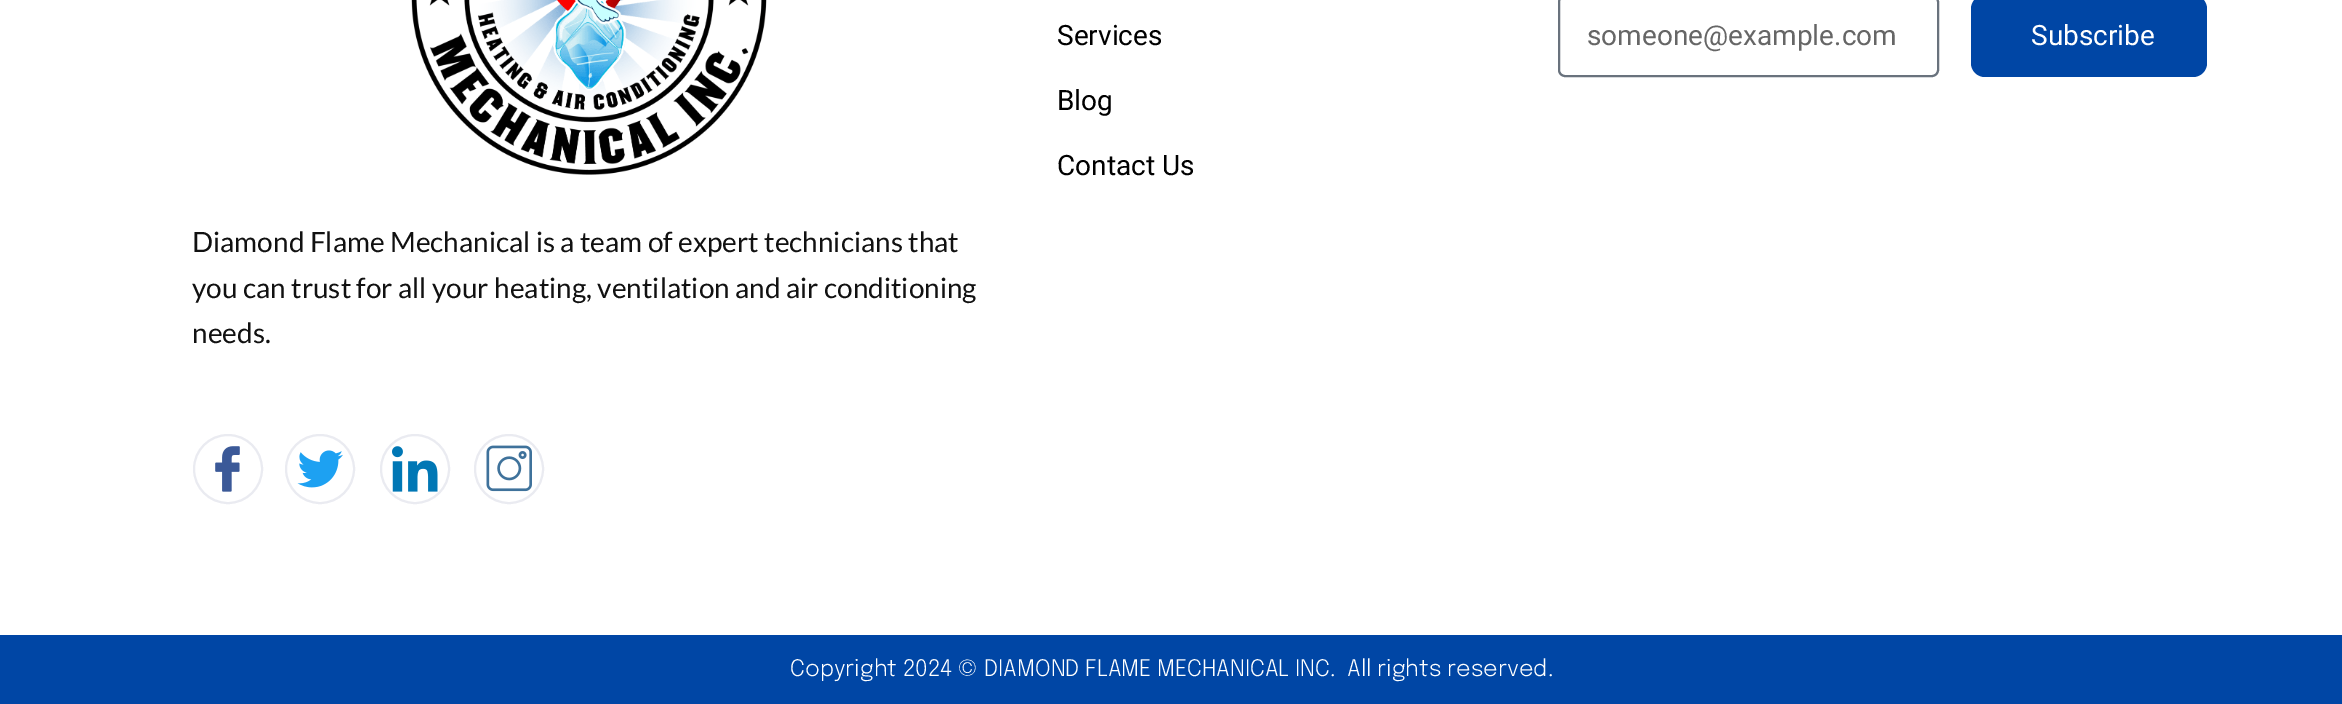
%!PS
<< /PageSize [2342 704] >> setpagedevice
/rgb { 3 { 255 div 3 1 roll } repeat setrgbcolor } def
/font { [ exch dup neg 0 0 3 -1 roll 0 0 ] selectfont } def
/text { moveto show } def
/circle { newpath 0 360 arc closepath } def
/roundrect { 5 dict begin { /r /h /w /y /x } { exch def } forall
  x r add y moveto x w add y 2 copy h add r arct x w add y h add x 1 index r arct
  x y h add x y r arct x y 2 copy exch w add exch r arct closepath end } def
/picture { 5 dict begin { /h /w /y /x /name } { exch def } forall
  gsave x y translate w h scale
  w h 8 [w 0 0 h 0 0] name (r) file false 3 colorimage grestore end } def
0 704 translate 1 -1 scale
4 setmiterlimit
255 255 255 rgb
0 0 2342 704 rectfill
105 114 125 rgb
2 setlinewidth
1559 -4 379 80 6 roundrect stroke
0 70 165 rgb
1971 -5 236 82 14 roundrect fill
(img_01.rgb) 411 0 356 175 picture
234 235 241 rgb
228 469 34 circle stroke
(img_02.rgb) 215 446 25 46 picture
320 469 34 circle stroke
(img_03.rgb) 297 450 46 38 picture
415 469 34 circle stroke
(img_04.rgb) 392 446 46 46 picture
509 469 34 circle stroke
(img_05.rgb) 486 445 46 47 picture
0 70 165 rgb
0 635 2342 69 rectfill
/Roboto-Regular 28 font
0 0 0 rgb
(Services) 1057 45 text
(Blog) 1057 110 text
(Contact Us) 1057 175 text
102 102 102 rgb
(someone@example.com) 1587 45 text
255 255 255 rgb
(Subscribe) 2031 45 text
/Lato-Regular 28 font
17 17 17 rgb
(Diamond Flame Mechanical is a team of expert technicians that) 192 252 text
(you can trust for all your heating, ventilation and air conditioning) 192 298 text
(needs.) 192 343 text
/Epilogue-Light 22.75 font
255 255 255 rgb
(Copyright 2024 © DIAMOND FLAME MECHANICAL INC.  All rights reserved.) 790 676 text
showpage
